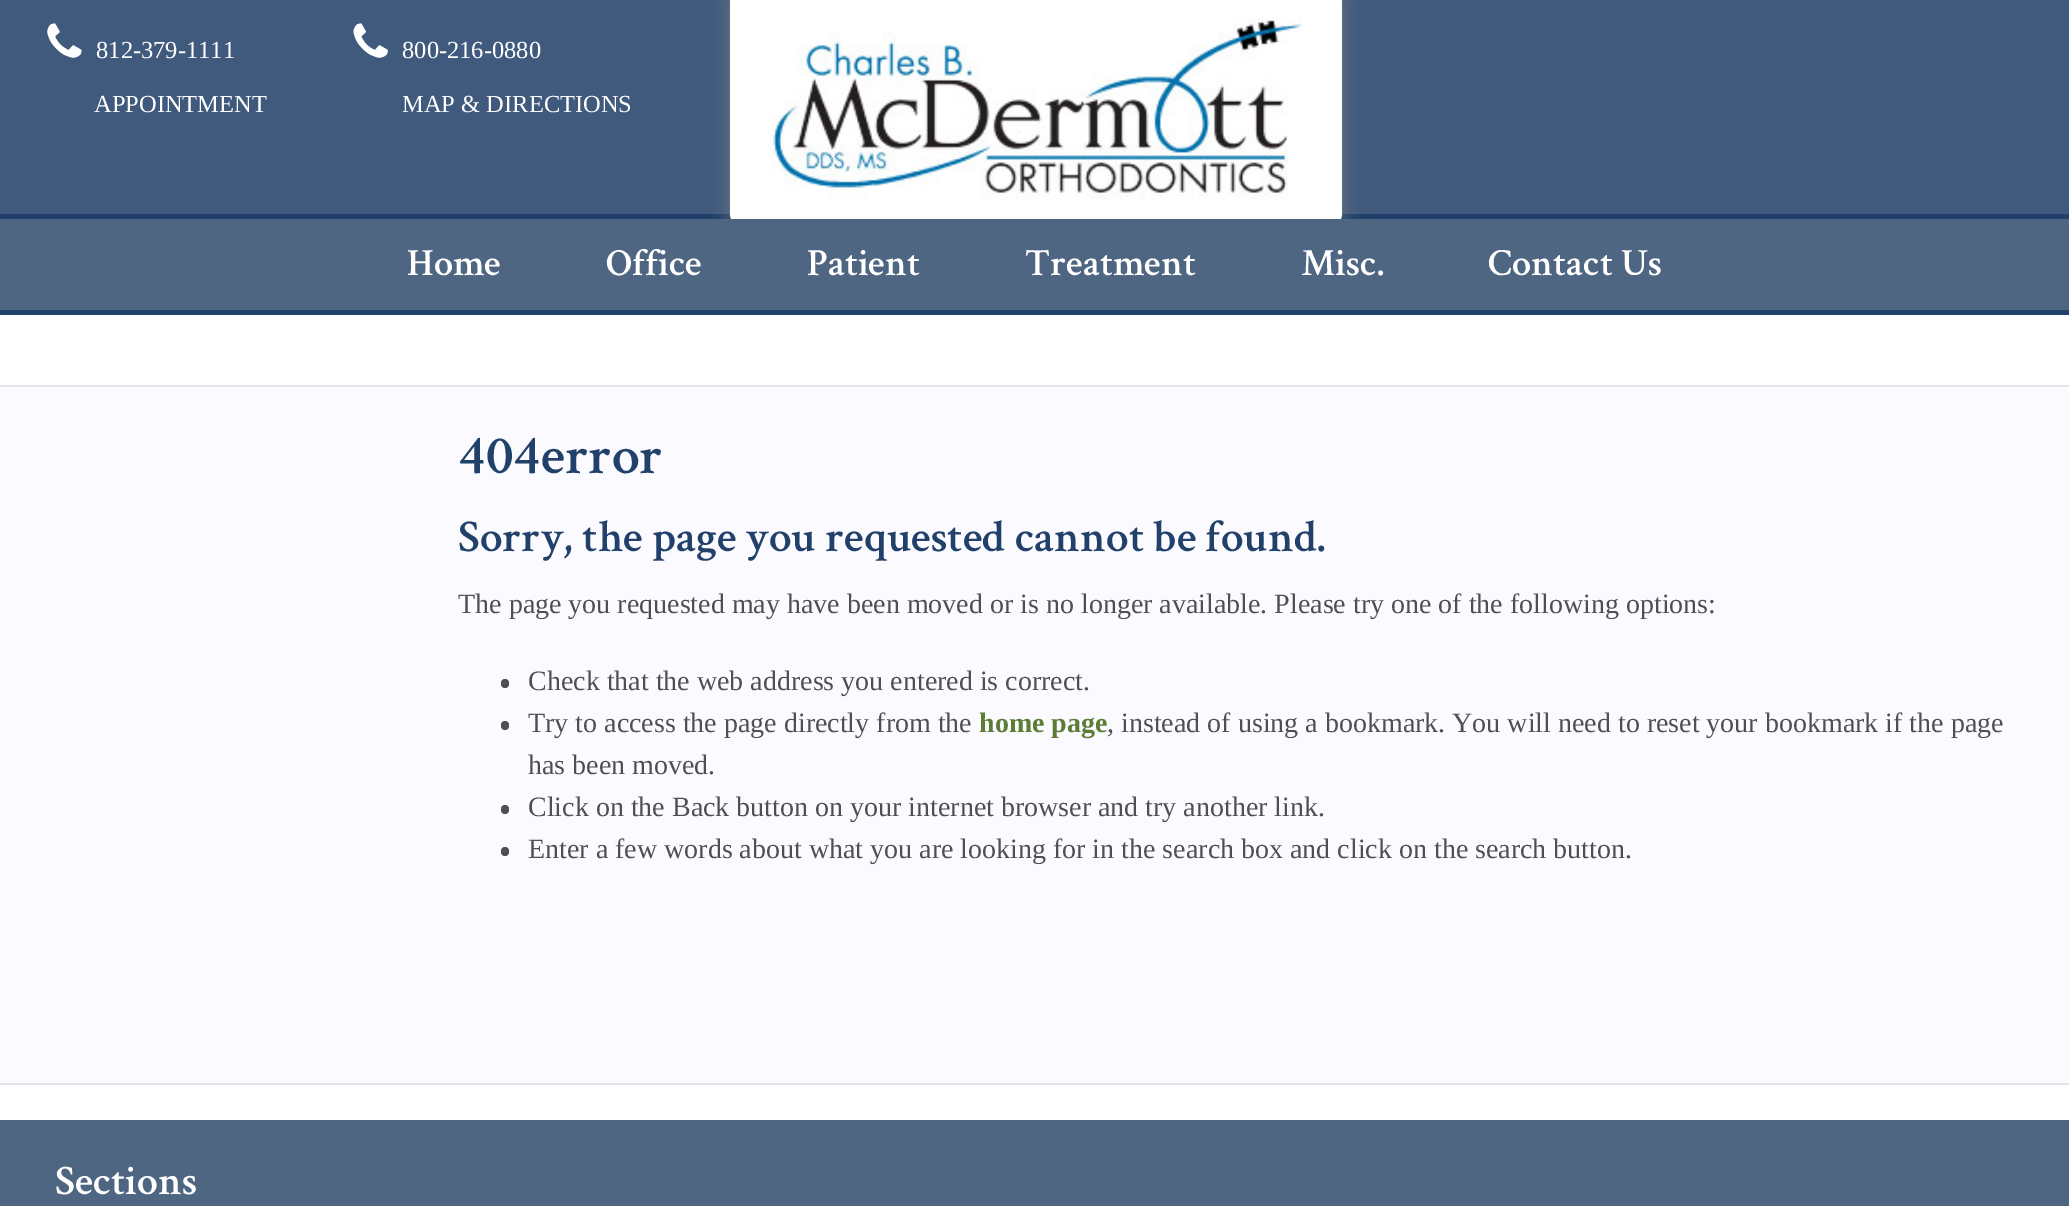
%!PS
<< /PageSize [2069 1206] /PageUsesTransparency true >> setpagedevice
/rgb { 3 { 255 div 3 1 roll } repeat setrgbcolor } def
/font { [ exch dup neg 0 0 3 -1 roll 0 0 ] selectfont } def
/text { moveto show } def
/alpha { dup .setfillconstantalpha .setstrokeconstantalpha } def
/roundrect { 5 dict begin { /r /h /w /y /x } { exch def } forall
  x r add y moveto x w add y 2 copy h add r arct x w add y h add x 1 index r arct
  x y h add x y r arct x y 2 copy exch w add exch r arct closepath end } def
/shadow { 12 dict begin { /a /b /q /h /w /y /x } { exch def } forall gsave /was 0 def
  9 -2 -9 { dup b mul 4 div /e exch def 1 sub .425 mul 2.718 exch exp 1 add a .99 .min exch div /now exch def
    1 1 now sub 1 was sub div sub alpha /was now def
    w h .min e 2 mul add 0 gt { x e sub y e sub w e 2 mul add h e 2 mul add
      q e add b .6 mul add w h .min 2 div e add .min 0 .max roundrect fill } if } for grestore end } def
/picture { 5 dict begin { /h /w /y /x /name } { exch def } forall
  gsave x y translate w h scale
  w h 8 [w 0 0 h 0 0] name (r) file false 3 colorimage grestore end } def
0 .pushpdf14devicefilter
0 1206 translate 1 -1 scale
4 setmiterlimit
255 255 255 rgb
0 0 2069 1206 rectfill
64 90 125 rgb
0 0 2069 214 rectfill
33 65 106 rgb
0 214 2069 5 rectfill
(img_01.rgb) 47 23 35 35 picture
(img_02.rgb) 353 23 35 35 picture
130 130 130 rgb
730 -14 612 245 18 9 0.75 shadow
255 255 255 rgb
730 -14 moveto 612 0 rlineto 0 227 rlineto 0 10 -8 18 -18 18 rcurveto -576 0 rlineto -10 0 -18 -8 -18 -18 rcurveto closepath fill
(img_03.rgb) 770 17 533 183 picture
79 102 131 rgb
0 219 2069 91 rectfill
33 65 106 rgb
0 310 2069 5 rectfill
251 250 255 rgb
0 387 2069 696 rectfill
226 228 232 rgb
0 385 2069 2 rectfill
0 1083 2069 2 rectfill
77 79 82 rgb
501 679 8 9 4 roundrect fill
501 721 8 9 4 roundrect fill
501 805 8 9 4 roundrect fill
501 847 8 9 4 roundrect fill
79 102 131 rgb
0 1120 2069 86 rectfill
/LiberationSerif-Regular 24.5 font
255 255 255 rgb
(812-379-1111) 96 58 text
(800-216-0880) 402 58 text
(APPOINTMENT) 94 112 text
(MAP & DIRECTIONS) 402 112 text
/CrimsonText-SemiBold 38.5 font
(Home) 407 275 text
(Office) 606 275 text
(Patient) 807 275 text
(Treatment) 1025 275 text
(Misc.) 1301 275 text
(Contact Us) 1488 275 text
/CrimsonText-SemiBold 56 font
33 65 106 rgb
(404error) 458 473 text
/CrimsonText-SemiBold 45.5 font
(Sorry, the page you requested cannot be found.) 458 551 text
/LiberationSerif-Regular 28 font
77 79 82 rgb
(The page you requested may have been moved or is no longer available. Please try one of the following options:) 458 613 text
(Check that the web address you entered is correct.) 528 690 text
(Try to access the page directly from the) 528 732 text
/LiberationSerif-Bold 28 font
92 125 54 rgb
(home page) 979 732 text
/LiberationSerif-Regular 28 font
77 79 82 rgb
(, instead of using a bookmark. You will need to reset your bookmark if the page) 1107 732 text
(has been moved.) 528 774 text
(Click on the Back button on your internet browser and try another link.) 528 816 text
(Enter a few words about what you are looking for in the search box and click on the search button.) 528 858 text
/CrimsonText-SemiBold 42 font
255 255 255 rgb
(Sections) 55 1194 text
.poppdf14devicefilter showpage
